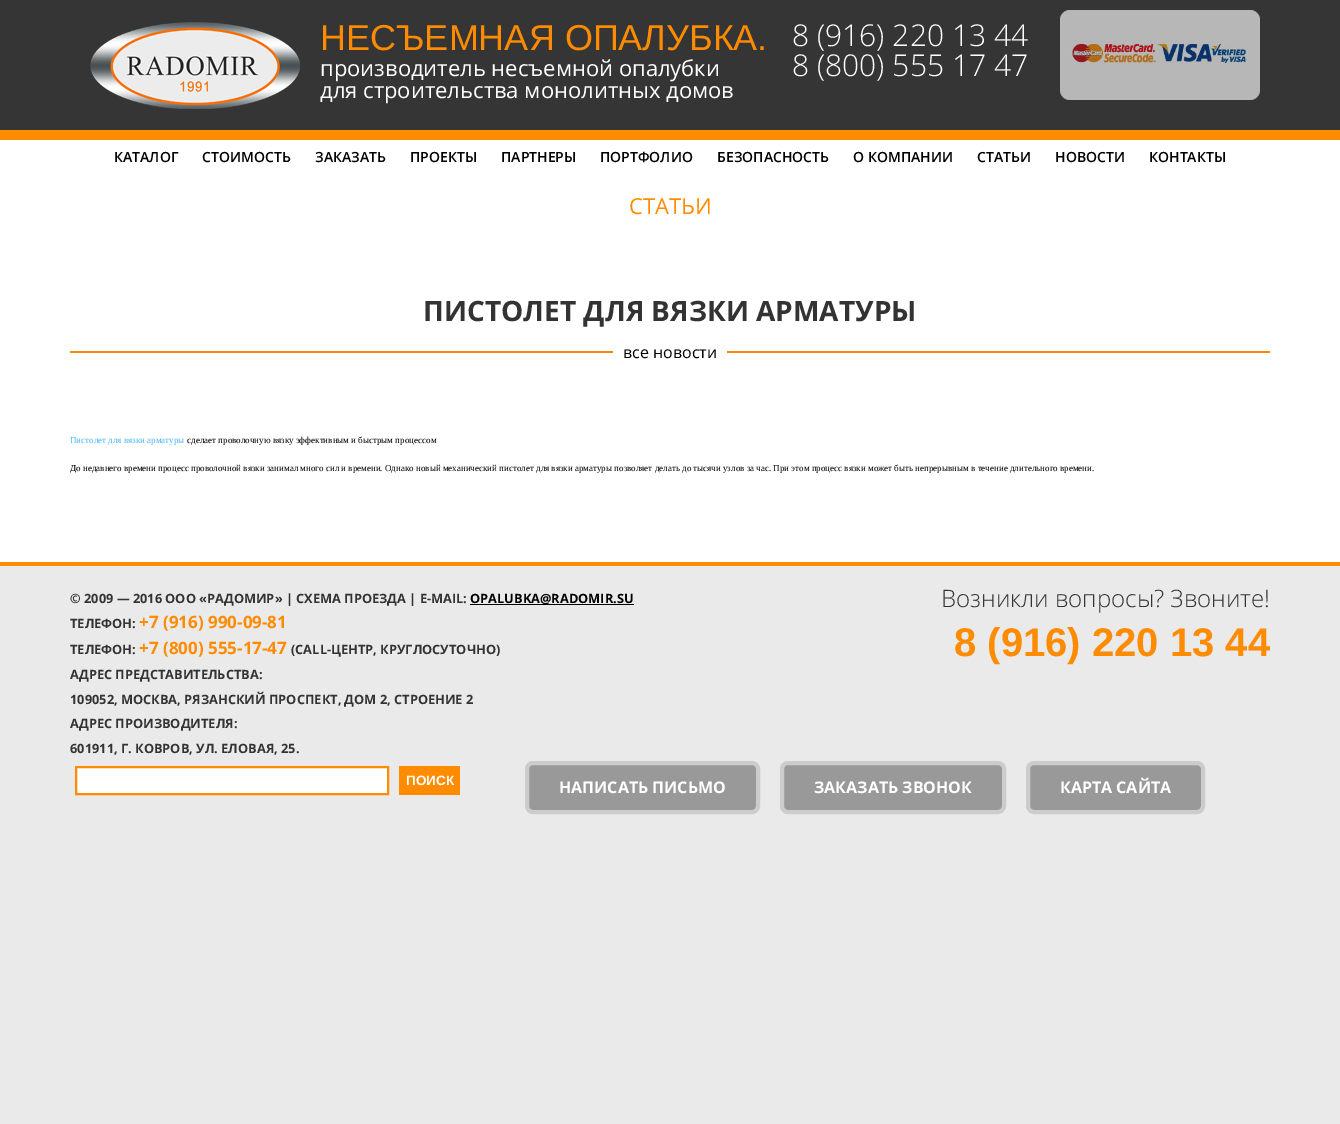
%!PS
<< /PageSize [1340 1124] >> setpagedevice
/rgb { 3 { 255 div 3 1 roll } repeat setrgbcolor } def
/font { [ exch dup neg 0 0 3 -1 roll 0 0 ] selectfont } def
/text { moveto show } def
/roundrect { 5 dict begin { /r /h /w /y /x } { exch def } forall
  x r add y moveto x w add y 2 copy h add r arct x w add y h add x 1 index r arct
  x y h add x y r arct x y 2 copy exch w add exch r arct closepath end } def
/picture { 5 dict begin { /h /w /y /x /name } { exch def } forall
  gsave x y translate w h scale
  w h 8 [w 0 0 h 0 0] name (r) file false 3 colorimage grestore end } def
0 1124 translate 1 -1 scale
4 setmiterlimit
234 234 234 rgb
0 0 1340 1124 rectfill
53 53 53 rgb
0 0 1340 130 rectfill
(img_01.rgb) 90 22 210 87 picture
183 183 183 rgb
1060 10 200 90 10 roundrect fill
(img_02.rgb) 1070 40 177 26 picture
255 255 255 rgb
0 140 1340 422 rectfill
255 139 0 rgb
0 130 1340 10 rectfill
248 135 1 rgb
70 351 1200 2 rectfill
255 255 255 rgb
613 351 114 2 rectfill
255 139 0 rgb
0 562 1340 4 rectfill
0 0 0 rgb
470 604 164 1 rectfill
255 255 255 rgb
76 767 moveto 312 0 rlineto 0 27 rlineto -312 0 rlineto closepath gsave fill grestore
255 139 0 rgb
2 setlinewidth
stroke
399 766 61 29 rectfill
153 153 153 rgb
527 763 231 49 6 roundrect gsave fill grestore
204 204 204 rgb
4 setlinewidth
stroke
153 153 153 rgb
782 763 222 49 6 roundrect gsave fill grestore
204 204 204 rgb
stroke
153 153 153 rgb
1028 763 175 49 6 roundrect gsave fill grestore
204 204 204 rgb
stroke
/LiberationSans-Regular 36 font
255 139 0 rgb
(НЕСЪЕМНАЯ ОПАЛУБКА.) 320 50 text
/OpenSans-Regular 22 font
255 255 255 rgb
(производитель несъемной опалубки) 320 76 text
(для строительства монолитных домов) 320 98 text
/OpenSans-Light 30 font
(8 \(916\) 220 13 44) 792 46 text
(8 \(800\) 555 17 47) 792 76 text
/OpenSans-SemiBold 14 font
0 0 0 rgb
(КАТАЛОГ) 114 162 text
(СТОИМОСТЬ) 202 162 text
(ЗАКАЗАТЬ) 315 162 text
(ПРОЕКТЫ) 410 162 text
(ПАРТНЕРЫ) 501 162 text
(ПОРТФОЛИО) 600 162 text
(БЕЗОПАСНОСТЬ) 717 162 text
(О КОМПАНИИ) 853 162 text
(СТАТЬИ) 977 162 text
(НОВОСТИ) 1055 162 text
(КОНТАКТЫ) 1149 162 text
/OpenSans-Regular 22 font
255 139 0 rgb
(СТАТЬИ) 629 214 text
/OpenSans-Bold 28 font
51 51 51 rgb
(ПИСТОЛЕТ ДЛЯ ВЯЗКИ АРМАТУРЫ) 423 321 text
/OpenSans-Regular 16 font
0 0 0 rgb
(все новости) 623 358 text
/LiberationSerif-Regular 9 font
75 182 245 rgb
(Пистолет для вязки арматуры) 70 443 text
0 0 0 rgb
(сделает проволочную вязку эффективным и быстрым процессом) 187 443 text
(До недавнего времени процесс проволочной вязки занимал много сил и времени. Однако новый механический пистолет для вязки арматуры позволяет делать до тысячи узлов за час. При этом процесс вязки может быть непрерывным в течение длительного времени.) 70 471 text
/OpenSans-Bold 12.8 font
51 51 51 rgb
(© 2009 — 2016 ООО «РАДОМИР» | СХЕМА ПРОЕЗДА | E-MAIL:) 70 603 text
0 0 0 rgb
(OPALUBKA@RADOMIR.SU) 470 603 text
51 51 51 rgb
(ТЕЛЕФОН:) 70 628 text
/OpenSans-Bold 17 font
255 139 0 rgb
(+7 \(916\) 990-09-81) 139 628 text
/OpenSans-Bold 12.8 font
51 51 51 rgb
(ТЕЛЕФОН:) 70 654 text
/OpenSans-Bold 17 font
255 139 0 rgb
(+7 \(800\) 555-17-47) 139 654 text
/OpenSans-Bold 12.8 font
51 51 51 rgb
(\(CALL-ЦЕНТР, КРУГЛОСУТОЧНО\)) 291 654 text
(АДРЕС ПРЕДСТАВИТЕЛЬСТВА:) 70 679 text
(109052, МОСКВА, РЯЗАНСКИЙ ПРОСПЕКТ, ДОМ 2, СТРОЕНИЕ 2) 70 704 text
(АДРЕС ПРОИЗВОДИТЕЛЯ:) 70 728 text
(601911, Г. КОВРОВ, УЛ. ЕЛОВАЯ, 25.) 70 753 text
/OpenSans-Light 24 font
(Возникли вопросы? Звоните!) 941 607 text
/LiberationSans-Bold 40 font
255 139 0 rgb
(8 \(916\) 220 13 44) 954 656 text
/LiberationSans-Bold 13.5 font
255 255 255 rgb
(ПОИСК) 406 785 text
/OpenSans-Bold 16 font
(НАПИСАТЬ ПИСЬМО) 559 793 text
(ЗАКАЗАТЬ ЗВОНОК) 814 793 text
(КАРТА САЙТА) 1060 793 text
showpage
